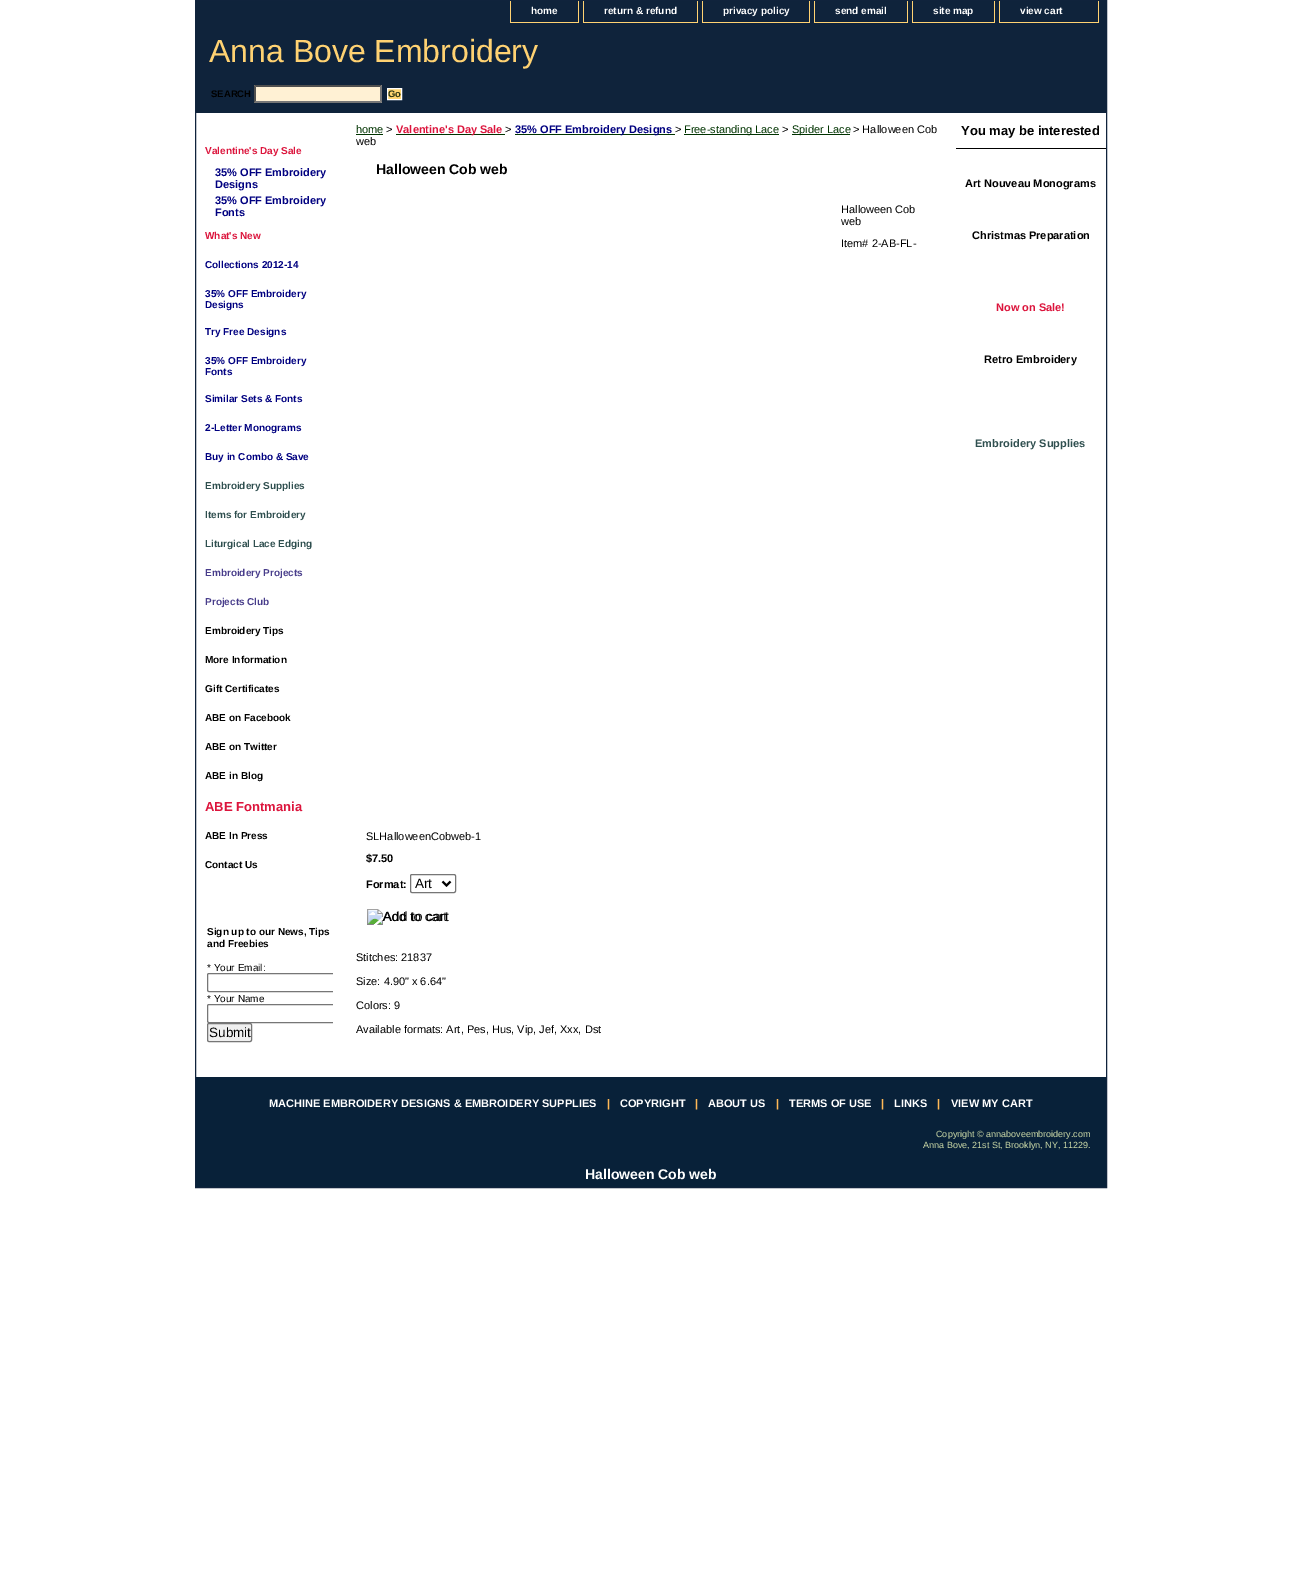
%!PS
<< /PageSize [1301 1579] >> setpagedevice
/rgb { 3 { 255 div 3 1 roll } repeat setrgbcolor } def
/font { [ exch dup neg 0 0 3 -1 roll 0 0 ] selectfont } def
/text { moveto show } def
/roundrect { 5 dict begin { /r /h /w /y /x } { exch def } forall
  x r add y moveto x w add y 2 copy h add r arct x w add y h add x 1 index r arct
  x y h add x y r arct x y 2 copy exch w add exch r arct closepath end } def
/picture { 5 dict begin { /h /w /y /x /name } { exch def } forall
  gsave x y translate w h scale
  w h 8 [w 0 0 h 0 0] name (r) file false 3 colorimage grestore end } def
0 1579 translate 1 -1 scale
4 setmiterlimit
255 255 255 rgb
0 0 1301 1579 rectfill
16 35 60 rgb
195.5 0.5 911 1187 rectstroke
15 35 59 rgb
196 1 910 112 rectfill
255 210 114 rgb
578 1 1 22 rectfill
510 22 69 1 rectfill
510 1 1 22 rectfill
697 1 1 22 rectfill
583 22 115 1 rectfill
583 1 1 22 rectfill
809 1 1 22 rectfill
702 22 108 1 rectfill
702 1 1 22 rectfill
907 1 1 22 rectfill
814 22 94 1 rectfill
814 1 1 22 rectfill
994 1 1 22 rectfill
912 22 83 1 rectfill
912 1 1 22 rectfill
1098 1 1 22 rectfill
999 22 100 1 rectfill
999 1 1 22 rectfill
255 241 212 rgb
254 85 128 18 rectfill
79 79 79 rgb
254 85 moveto 128 0 rlineto -2 2 rlineto -124 0 rlineto closepath fill
118 118 118 rgb
382 85 moveto 0 18 rlineto -2 -2 rlineto 0 -14 rlineto closepath fill
382 103 moveto -128 0 rlineto 2 -2 rlineto 124 0 rlineto closepath fill
79 79 79 rgb
254 103 moveto 0 -18 rlineto 2 2 rlineto 0 14 rlineto closepath fill
254 213 112 rgb
387.5 88.5 moveto 14 0 rlineto 0 11 rlineto -14 0 rlineto closepath gsave fill grestore
255 255 255 rgb
stroke
gsave
196 113 137 964 rectclip
118 118 118 rgb
207.5 973.5 132 18 1.5 roundrect stroke
207.5 1004.5 132 18 1.5 roundrect stroke
grestore
239 239 239 rgb
207.5 1023.5 44 18 1.5 roundrect gsave fill grestore
118 118 118 rgb
stroke
0 51 0 rgb
356 134 27 1 rectfill
396 134 109 1 rectfill
515 134 160 1 rectfill
684 134 95 1 rectfill
792 134 58 1 rectfill
118 118 118 rgb
410.5 874.5 45 18 1.5 roundrect stroke
0 0 0 rgb
2 setlinewidth
442.5 881.5 moveto 4 4 rlineto 4 -4 rlineto stroke
(img_01.rgb) 367 909 80 16 picture
956 148 150 1 rectfill
8 33 57 rgb
196 1077 910 110 rectfill
/LiberationSans-Bold 10 font
255 255 255 rgb
(home) 531 14 text
(return & refund) 604 14 text
(privacy policy) 723 14 text
(send email) 835 14 text
(site map) 933 14 text
(view cart) 1020 14 text
/LiberationSans-Regular 32 font
255 210 114 rgb
(Anna Bove Embroidery) 209 62 text
/LiberationSans-Bold 9.5 font
0 0 0 rgb
(SEARCH) 211 97 text
41 52 19 rgb
(Go) 388 97 text
/LiberationSans-Bold 10 font
220 20 60 rgb
(Valentine's Day Sale) 205 154 text
/LiberationSans-Bold 11 font
0 0 128 rgb
(35% OFF Embroidery) 215 176 text
(Designs) 215 188 text
(35% OFF Embroidery) 215 204 text
(Fonts) 215 216 text
/LiberationSans-Bold 10 font
220 20 60 rgb
(What's New) 205 239 text
0 0 128 rgb
(Collections 2012-14) 205 268 text
(35% OFF Embroidery) 205 297 text
(Designs) 205 308 text
(Try Free Designs) 205 335 text
(35% OFF Embroidery) 205 364 text
(Fonts) 205 375 text
(Similar Sets & Fonts) 205 402 text
(2-Letter Monograms) 205 431 text
(Buy in Combo & Save) 205 460 text
47 79 79 rgb
(Embroidery Supplies) 205 489 text
(Items for Embroidery) 205 518 text
(Liturgical Lace Edging) 205 547 text
72 61 139 rgb
(Embroidery Projects) 205 576 text
(Projects Club) 205 605 text
0 0 0 rgb
(Embroidery Tips) 205 634 text
(More Information) 205 663 text
(Gift Certificates) 205 692 text
(ABE on Facebook) 205 721 text
(ABE on Twitter) 205 750 text
(ABE in Blog) 205 779 text
/LiberationSans-Bold 13 font
220 20 60 rgb
(ABE Fontmania) 205 811 text
/LiberationSans-Bold 10 font
0 0 0 rgb
(ABE In Press) 205 839 text
(Contact Us) 205 868 text
(Sign up to our News, Tips) 207 935 text
(and Freebies) 207 947 text
/LiberationSans-Regular 10 font
(* Your Email:) 207 971 text
(* Your Name) 207 1002 text
/LiberationSans-Regular 13.5 font
(Submit) 209 1037 text
/LiberationSans-Regular 11 font
0 51 0 rgb
(home) 356 133 text
0 0 0 rgb
(>) 386 133 text
/LiberationSans-Bold 11 font
220 20 60 rgb
(Valentine's Day Sale) 396 133 text
/LiberationSans-Regular 11 font
0 0 0 rgb
(>) 505 133 text
/LiberationSans-Bold 11 font
0 0 128 rgb
(35% OFF Embroidery Designs) 515 133 text
/LiberationSans-Regular 11 font
0 0 0 rgb
(>) 675 133 text
0 51 0 rgb
(Free-standing Lace) 684 133 text
0 0 0 rgb
(>) 782 133 text
0 51 0 rgb
(Spider Lace) 792 133 text
0 0 0 rgb
(> Halloween Cob) 853 133 text
(web) 356 145 text
/LiberationSans-Bold 14 font
(Halloween Cob web) 376 174 text
/LiberationSans-Regular 11 font
(Halloween Cob) 841 213 text
(web) 841 225 text
(Item# 2-AB-FL-) 841 247 text
(SLHalloweenCobweb-1) 366 840 text
/LiberationSans-Bold 11 font
($7.50) 366 862 text
(Format:) 366 888 text
/LiberationSans-Regular 13.5 font
(Art) 415 888 text
(Add to cart) 383 921 text
/LiberationSans-Regular 11 font
(Stitches: 21837) 356 961 text
(Size: 4.90" x 6.64") 356 985 text
(Colors: 9) 356 1009 text
(Available formats: Art, Pes, Hus, Vip, Jef, Xxx, Dst) 356 1033 text
/LiberationSans-Bold 13 font
(You may be interested) 961 135 text
/LiberationSans-Bold 11 font
(Art Nouveau Monograms) 965 187 text
(Christmas Preparation) 972 239 text
220 20 60 rgb
(Now on Sale!) 996 311 text
0 0 0 rgb
(Retro Embroidery) 984 363 text
47 79 79 rgb
(Embroidery Supplies) 975 447 text
255 255 255 rgb
(MACHINE EMBROIDERY DESIGNS & EMBROIDERY SUPPLIES) 269 1107 text
255 184 87 rgb
(|) 607 1107 text
255 255 255 rgb
(COPYRIGHT) 620 1107 text
255 184 87 rgb
(|) 695 1107 text
255 255 255 rgb
(ABOUT US) 708 1107 text
255 184 87 rgb
(|) 776 1107 text
255 255 255 rgb
(TERMS OF USE) 789 1107 text
255 184 87 rgb
(|) 881 1107 text
255 255 255 rgb
(LINKS) 894 1107 text
255 184 87 rgb
(|) 937 1107 text
255 255 255 rgb
(VIEW MY CART) 951 1107 text
/LiberationSans-Regular 9 font
202 216 167 rgb
(Copyright © annaboveembroidery.com) 936 1137 text
(Anna Bove, 21st St, Brooklyn, NY, 11229.) 923 1148 text
/LiberationSans-Bold 14 font
255 255 255 rgb
(Halloween Cob web) 585 1179 text
showpage
